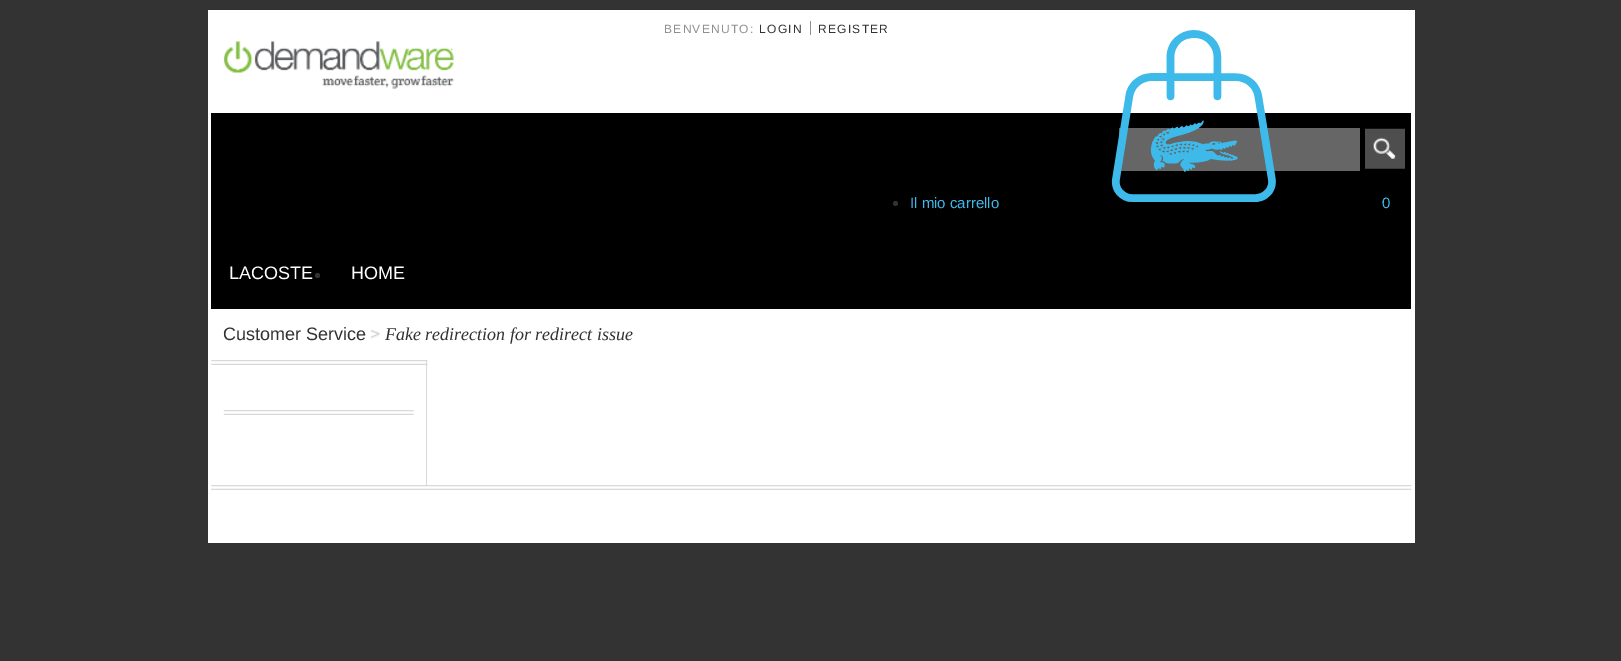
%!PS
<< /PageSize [1621 661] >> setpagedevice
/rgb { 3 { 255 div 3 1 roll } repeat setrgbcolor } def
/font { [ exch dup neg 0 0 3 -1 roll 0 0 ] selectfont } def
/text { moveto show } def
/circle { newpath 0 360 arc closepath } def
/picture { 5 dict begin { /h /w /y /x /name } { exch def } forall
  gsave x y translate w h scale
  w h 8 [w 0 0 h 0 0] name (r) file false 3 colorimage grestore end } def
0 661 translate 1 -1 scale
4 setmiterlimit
51 51 51 rgb
0 0 1621 661 rectfill
255 255 255 rgb
208 10 1207 533 rectfill
143 143 143 rgb
810 21 1 14 rectfill
(img_01.rgb) 223 41 231 48 picture
0 0 0 rgb
211 113 1200 196 rectfill
51 51 51 rgb
895.5 203.5 2.5 circle fill
102 102 102 rgb
1119 128 241 43 rectfill
(img_02.rgb) 1111 30 165 172 picture
(img_03.rgb) 1365 128 40 41 picture
51 51 51 rgb
317.5 275.5 2.5 circle fill
(img_04.rgb) 370 330 10 9 picture
(img_05.rgb) 211 360 217 5 picture
217 217 217 rgb
426 360 1 125 rectfill
(img_06.rgb) 223 410 191 5 picture
(img_07.rgb) 211 485 1201 5 picture
/LiberationSans-Regular 12 font
143 143 143 rgb
664 33 moveto 1.25 0 (BENVENUTO:) ashow
51 51 51 rgb
759 33 moveto 1.25 0 (LOGIN) ashow
818 33 moveto 1.25 0 (REGISTER) ashow
/LiberationSans-Regular 15 font
62 186 234 rgb
(Il mio carrello) 910 208 text
(0) 1382 208 text
/LiberationSans-Regular 18 font
255 255 255 rgb
(LACOSTE) 229 279 text
(HOME) 351 279 text
51 51 51 rgb
(Customer Service) 223 340 text
/LiberationSerif-Italic 18 font
(Fake redirection for redirect issue) 385 340 text
showpage
